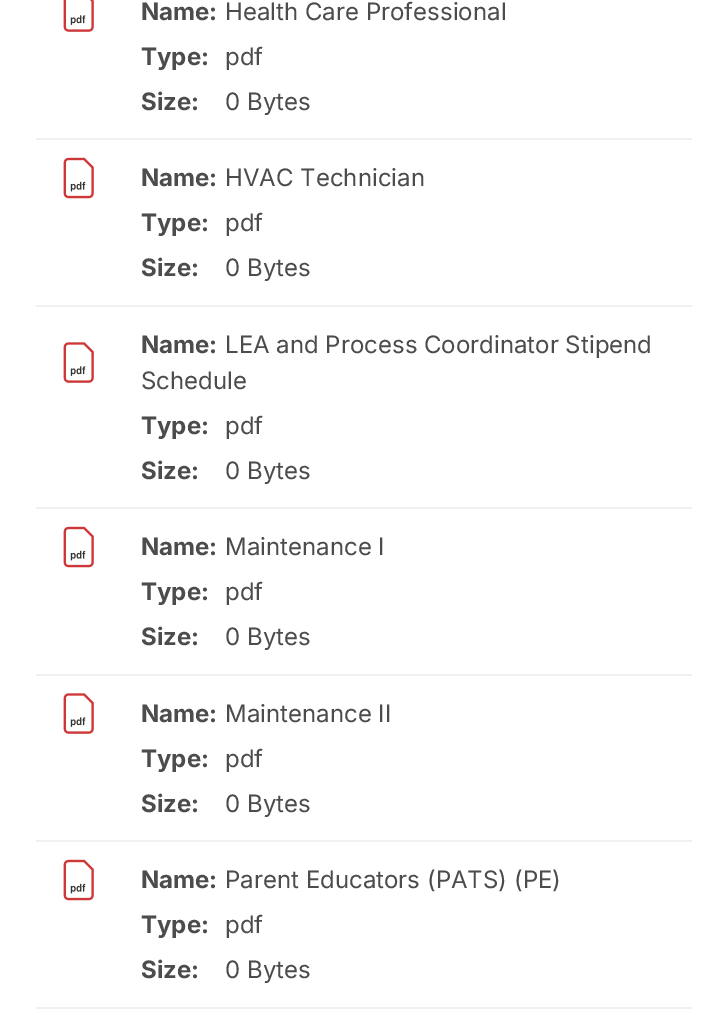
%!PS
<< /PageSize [727 1020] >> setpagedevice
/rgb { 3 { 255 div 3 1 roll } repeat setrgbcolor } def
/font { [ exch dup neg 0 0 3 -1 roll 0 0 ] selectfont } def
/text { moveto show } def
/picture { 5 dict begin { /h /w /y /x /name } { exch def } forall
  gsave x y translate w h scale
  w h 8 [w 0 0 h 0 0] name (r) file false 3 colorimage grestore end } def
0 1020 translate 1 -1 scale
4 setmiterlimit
255 255 255 rgb
0 0 727 1020 rectfill
240 240 240 rgb
36 138 656 2 rectfill
(img_01.rgb) 63 0 31 32 picture
36 305 656 2 rectfill
(img_02.rgb) 63 157 31 42 picture
36 507 656 2 rectfill
(img_03.rgb) 63 342 31 41 picture
36 674 656 2 rectfill
(img_02.rgb) 63 526 31 42 picture
36 840 656 2 rectfill
(img_03.rgb) 63 693 31 41 picture
36 1007 656 2 rectfill
(img_02.rgb) 63 859 31 42 picture
/Inter-Bold 24 font
76 76 76 rgb
(Name:) 141 20 text
/Inter-Regular 24 font
(Health Care Professional) 225 20 text
/Inter-Bold 24 font
(Type:) 141 65 text
/Inter-Regular 24 font
(pdf) 225 65 text
/Inter-Bold 24 font
(Size:) 141 110 text
/Inter-Regular 24 font
(0 Bytes) 225 110 text
/Inter-Bold 24 font
(Name:) 141 186 text
/Inter-Regular 24 font
(HVAC Technician) 225 186 text
/Inter-Bold 24 font
(Type:) 141 231 text
/Inter-Regular 24 font
(pdf) 225 231 text
/Inter-Bold 24 font
(Size:) 141 276 text
/Inter-Regular 24 font
(0 Bytes) 225 276 text
/Inter-Bold 24 font
(Name:) 141 353 text
/Inter-Regular 24 font
(LEA and Process Coordinator Stipend) 225 353 text
(Schedule) 141 389 text
/Inter-Bold 24 font
(Type:) 141 434 text
/Inter-Regular 24 font
(pdf) 225 434 text
/Inter-Bold 24 font
(Size:) 141 479 text
/Inter-Regular 24 font
(0 Bytes) 225 479 text
/Inter-Bold 24 font
(Name:) 141 555 text
/Inter-Regular 24 font
(Maintenance I) 225 555 text
/Inter-Bold 24 font
(Type:) 141 600 text
/Inter-Regular 24 font
(pdf) 225 600 text
/Inter-Bold 24 font
(Size:) 141 645 text
/Inter-Regular 24 font
(0 Bytes) 225 645 text
/Inter-Bold 24 font
(Name:) 141 722 text
/Inter-Regular 24 font
(Maintenance II) 225 722 text
/Inter-Bold 24 font
(Type:) 141 767 text
/Inter-Regular 24 font
(pdf) 225 767 text
/Inter-Bold 24 font
(Size:) 141 812 text
/Inter-Regular 24 font
(0 Bytes) 225 812 text
/Inter-Bold 24 font
(Name:) 141 888 text
/Inter-Regular 24 font
(Parent Educators \(PATS\) \(PE\)) 225 888 text
/Inter-Bold 24 font
(Type:) 141 933 text
/Inter-Regular 24 font
(pdf) 225 933 text
/Inter-Bold 24 font
(Size:) 141 978 text
/Inter-Regular 24 font
(0 Bytes) 225 978 text
showpage
